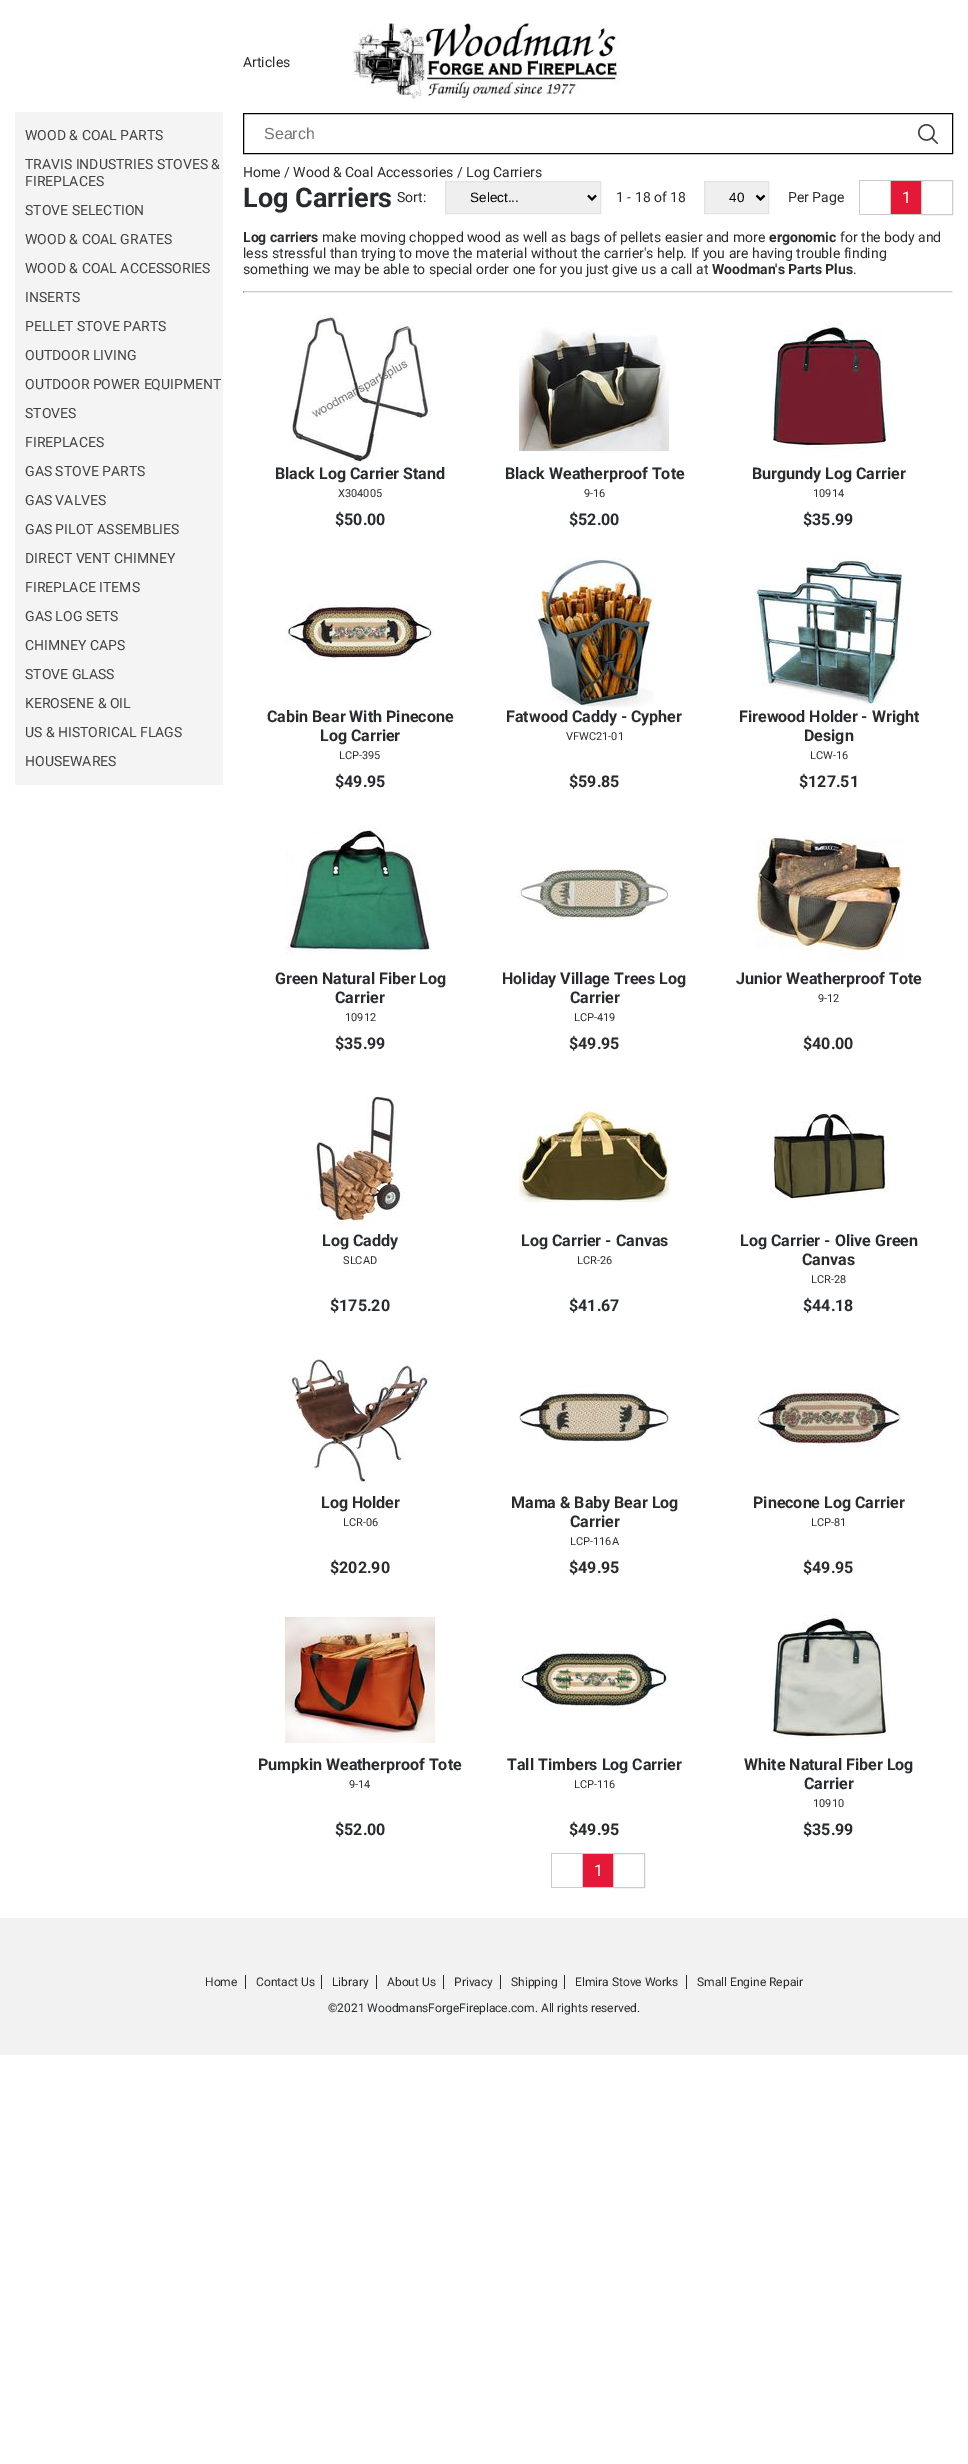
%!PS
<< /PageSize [968 2464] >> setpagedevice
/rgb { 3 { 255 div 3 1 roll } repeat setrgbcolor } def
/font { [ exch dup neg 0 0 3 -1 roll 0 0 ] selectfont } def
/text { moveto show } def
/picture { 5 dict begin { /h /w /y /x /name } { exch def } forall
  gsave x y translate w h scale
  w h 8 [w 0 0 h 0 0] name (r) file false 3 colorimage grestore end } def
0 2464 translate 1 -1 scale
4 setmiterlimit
255 255 255 rgb
0 0 968 2464 rectfill
(img_01.rgb) 353 23 267 79 picture
0 0 0 rgb
243.5 113.5 709 40 rectstroke
(img_02.rgb) 918 124 20 20 picture
244 244 244 rgb
15 112 208 673 rectfill
239 239 239 rgb
445.5 181.5 moveto 155 0 rlineto 0 32 rlineto -155 0 rlineto closepath gsave fill grestore
226 226 226 rgb
stroke
0 0 0 rgb
2 setlinewidth
588 195.5 moveto 4 4 rlineto 4 -4 rlineto stroke
239 239 239 rgb
704.5 181.5 moveto 64 0 rlineto 0 32 rlineto -64 0 rlineto closepath gsave fill grestore
226 226 226 rgb
1 setlinewidth
stroke
0 0 0 rgb
2 setlinewidth
756.5 195.5 moveto 4 4 rlineto 4 -4 rlineto stroke
204 204 204 rgb
859 180 62 1 rectfill
859 214 62 1 rectfill
859 180 1 35 rectfill
1 setlinewidth
921.5 180.5 31 34 rectstroke
227 25 55 rgb
891 181 30 33 rectfill
204 204 204 rgb
890 180 1 35 rectfill
243 291 710 1 rectfill
238 238 238 rgb
952 291 1 2 rectfill
243 292 710 1 rectfill
159 159 159 rgb
243 291 1 2 rectfill
(img_03.rgb) 289 314 142 150 picture
(img_04.rgb) 519 327 150 124 picture
(img_05.rgb) 770 322 120 136 picture
(img_06.rgb) 285 604 150 56 picture
(img_07.rgb) 535 557 119 150 picture
(img_08.rgb) 754 559 150 146 picture
(img_09.rgb) 285 826 146 128 picture
(img_10.rgb) 519 867 150 53 picture
(img_11.rgb) 754 835 150 128 picture
(img_12.rgb) 314 1096 91 129 picture
(img_13.rgb) 519 1110 150 92 picture
(img_14.rgb) 770 1113 120 95 picture
(img_15.rgb) 289 1359 140 128 picture
(img_16.rgb) 519 1391 150 53 picture
(img_17.rgb) 754 1389 150 58 picture
(img_18.rgb) 285 1617 150 126 picture
(img_19.rgb) 519 1650 150 59 picture
(img_20.rgb) 770 1613 120 132 picture
204 204 204 rgb
551 1853 62 1 rectfill
551 1887 62 1 rectfill
551 1853 1 35 rectfill
613.5 1853.5 31 34 rectstroke
227 25 55 rgb
583 1854 30 33 rectfill
204 204 204 rgb
582 1853 1 35 rectfill
242 242 242 rgb
0 1918 968 137 rectfill
40 44 47 rgb
245 1975 1 14 rectfill
321 1975 1 14 rectfill
376 1975 1 14 rectfill
443 1975 1 14 rectfill
500 1975 1 14 rectfill
564 1975 1 14 rectfill
686 1975 1 14 rectfill
/Roboto-Regular 14 font
(Articles) 243 67 text
/LiberationSans-Regular 16 font
117 117 117 rgb
(Search) 264 139 text
/Roboto-Regular 14 font
65 65 65 rgb
(WOOD & COAL PARTS) 25 140 text
(TRAVIS INDUSTRIES STOVES &) 25 169 text
(FIREPLACES) 25 186 text
(STOVE SELECTION) 25 215 text
(WOOD & COAL GRATES) 25 244 text
(WOOD & COAL ACCESSORIES) 25 273 text
(INSERTS) 25 302 text
(PELLET STOVE PARTS) 25 331 text
(OUTDOOR LIVING) 25 360 text
(OUTDOOR POWER EQUIPMENT) 25 389 text
(STOVES) 25 418 text
(FIREPLACES) 25 447 text
(GAS STOVE PARTS) 25 476 text
(GAS VALVES) 25 505 text
(GAS PILOT ASSEMBLIES) 25 534 text
(DIRECT VENT CHIMNEY) 25 563 text
(FIREPLACE ITEMS) 25 592 text
(GAS LOG SETS) 25 621 text
(CHIMNEY CAPS) 25 650 text
(STOVE GLASS) 25 679 text
(KEROSENE & OIL) 25 708 text
(US & HISTORICAL FLAGS) 25 737 text
(HOUSEWARES) 25 766 text
40 44 47 rgb
(Home / Wood & Coal Accessories / Log Carriers) 243 177 text
/Roboto-Bold 27 font
(Log Carriers) 243 207 text
/Roboto-Regular 14 font
(Sort:) 397 202 text
/LiberationSans-Regular 13.5 font
0 0 0 rgb
(Select...) 470 202 text
/Roboto-Regular 14 font
40 44 47 rgb
(1 - 18 of 18) 616 202 text
/LiberationSans-Regular 13.5 font
0 0 0 rgb
(40) 729 202 text
/Roboto-Regular 14 font
40 44 47 rgb
(Per Page) 788 202 text
/Roboto-Regular 16 font
255 255 255 rgb
(1) 902 203 text
/Roboto-Bold 14 font
40 44 47 rgb
(Log carriers) 243 242 text
/Roboto-Regular 14 font
(make moving chopped wood as well as bags of pellets easier and more) 322 242 text
/Roboto-Bold 14 font
(ergonomic) 769 242 text
/Roboto-Regular 14 font
(for the body and) 840 242 text
(less stressful than trying to move the material without the carrier's help. If you are having trouble finding) 243 258 text
(something we may be able to special order one for you just give us a call at) 243 274 text
/Roboto-Bold 14 font
(Woodman's Parts Plus) 712 274 text
/Roboto-Regular 14 font
(.) 853 274 text
/Roboto-Bold 16 font
(Black Log Carrier Stand) 275 479 text
/Roboto-Regular 11 font
(X304005) 338 497 text
/Roboto-Bold 16 font
($50.00) 335 525 text
(Black Weatherproof Tote) 505 479 text
/Roboto-Regular 11 font
(9-16) 584 497 text
/Roboto-Bold 16 font
($52.00) 569 525 text
(Burgundy Log Carrier) 752 479 text
/Roboto-Regular 11 font
(10914) 813 497 text
/Roboto-Bold 16 font
($35.99) 803 525 text
(Cabin Bear With Pinecone) 267 722 text
(Log Carrier) 320 741 text
/Roboto-Regular 11 font
(LCP-395) 339 759 text
/Roboto-Bold 16 font
($49.95) 335 787 text
(Fatwood Caddy - Cypher) 506 722 text
/Roboto-Regular 11 font
(VFWC21-01) 566 740 text
/Roboto-Bold 16 font
($59.85) 569 787 text
(Firewood Holder - Wright) 739 722 text
(Design) 804 741 text
/Roboto-Regular 11 font
(LCW-16) 810 759 text
/Roboto-Bold 16 font
($127.51) 799 787 text
(Green Natural Fiber Log) 275 984 text
(Carrier) 335 1003 text
/Roboto-Regular 11 font
(10912) 345 1021 text
/Roboto-Bold 16 font
($35.99) 335 1049 text
(Holiday Village Trees Log) 502 984 text
(Carrier) 570 1003 text
/Roboto-Regular 11 font
(LCP-419) 574 1021 text
/Roboto-Bold 16 font
($49.95) 569 1049 text
(Junior Weatherproof Tote) 736 984 text
/Roboto-Regular 11 font
(9-12) 818 1002 text
/Roboto-Bold 16 font
($40.00) 803 1049 text
(Log Caddy) 322 1246 text
/Roboto-Regular 11 font
(SLCAD) 343 1264 text
/Roboto-Bold 16 font
($175.20) 330 1311 text
(Log Carrier - Canvas) 521 1246 text
/Roboto-Regular 11 font
(LCR-26) 577 1264 text
/Roboto-Bold 16 font
($41.67) 569 1311 text
(Log Carrier - Olive Green) 740 1246 text
(Canvas) 802 1265 text
/Roboto-Regular 11 font
(LCR-28) 811 1283 text
/Roboto-Bold 16 font
($44.18) 803 1311 text
(Log Holder) 321 1508 text
/Roboto-Regular 11 font
(LCR-06) 343 1526 text
/Roboto-Bold 16 font
($202.90) 330 1573 text
(Mama & Baby Bear Log) 511 1508 text
(Carrier) 570 1527 text
/Roboto-Regular 11 font
(LCP-116A) 570 1545 text
/Roboto-Bold 16 font
($49.95) 569 1573 text
(Pinecone Log Carrier) 753 1508 text
/Roboto-Regular 11 font
(LCP-81) 811 1526 text
/Roboto-Bold 16 font
($49.95) 803 1573 text
(Pumpkin Weatherproof Tote) 258 1770 text
/Roboto-Regular 11 font
(9-14) 349 1788 text
/Roboto-Bold 16 font
($52.00) 335 1835 text
(Tall Timbers Log Carrier) 507 1770 text
/Roboto-Regular 11 font
(LCP-116) 574 1788 text
/Roboto-Bold 16 font
($49.95) 569 1835 text
(White Natural Fiber Log) 744 1770 text
(Carrier) 804 1789 text
/Roboto-Regular 11 font
(10910) 813 1807 text
/Roboto-Bold 16 font
($35.99) 803 1835 text
/Roboto-Regular 16 font
255 255 255 rgb
(1) 594 1876 text
/Roboto-Regular 12 font
40 44 47 rgb
(Home) 205 1986 text
(Contact Us) 256 1986 text
(Library) 332 1986 text
(About Us) 387 1986 text
(Privacy) 454 1986 text
(Shipping) 511 1986 text
(Elmira Stove Works) 575 1986 text
(Small Engine Repair) 697 1986 text
(©2021 WoodmansForgeFireplace.com. All rights reserved.) 328 2012 text
showpage
